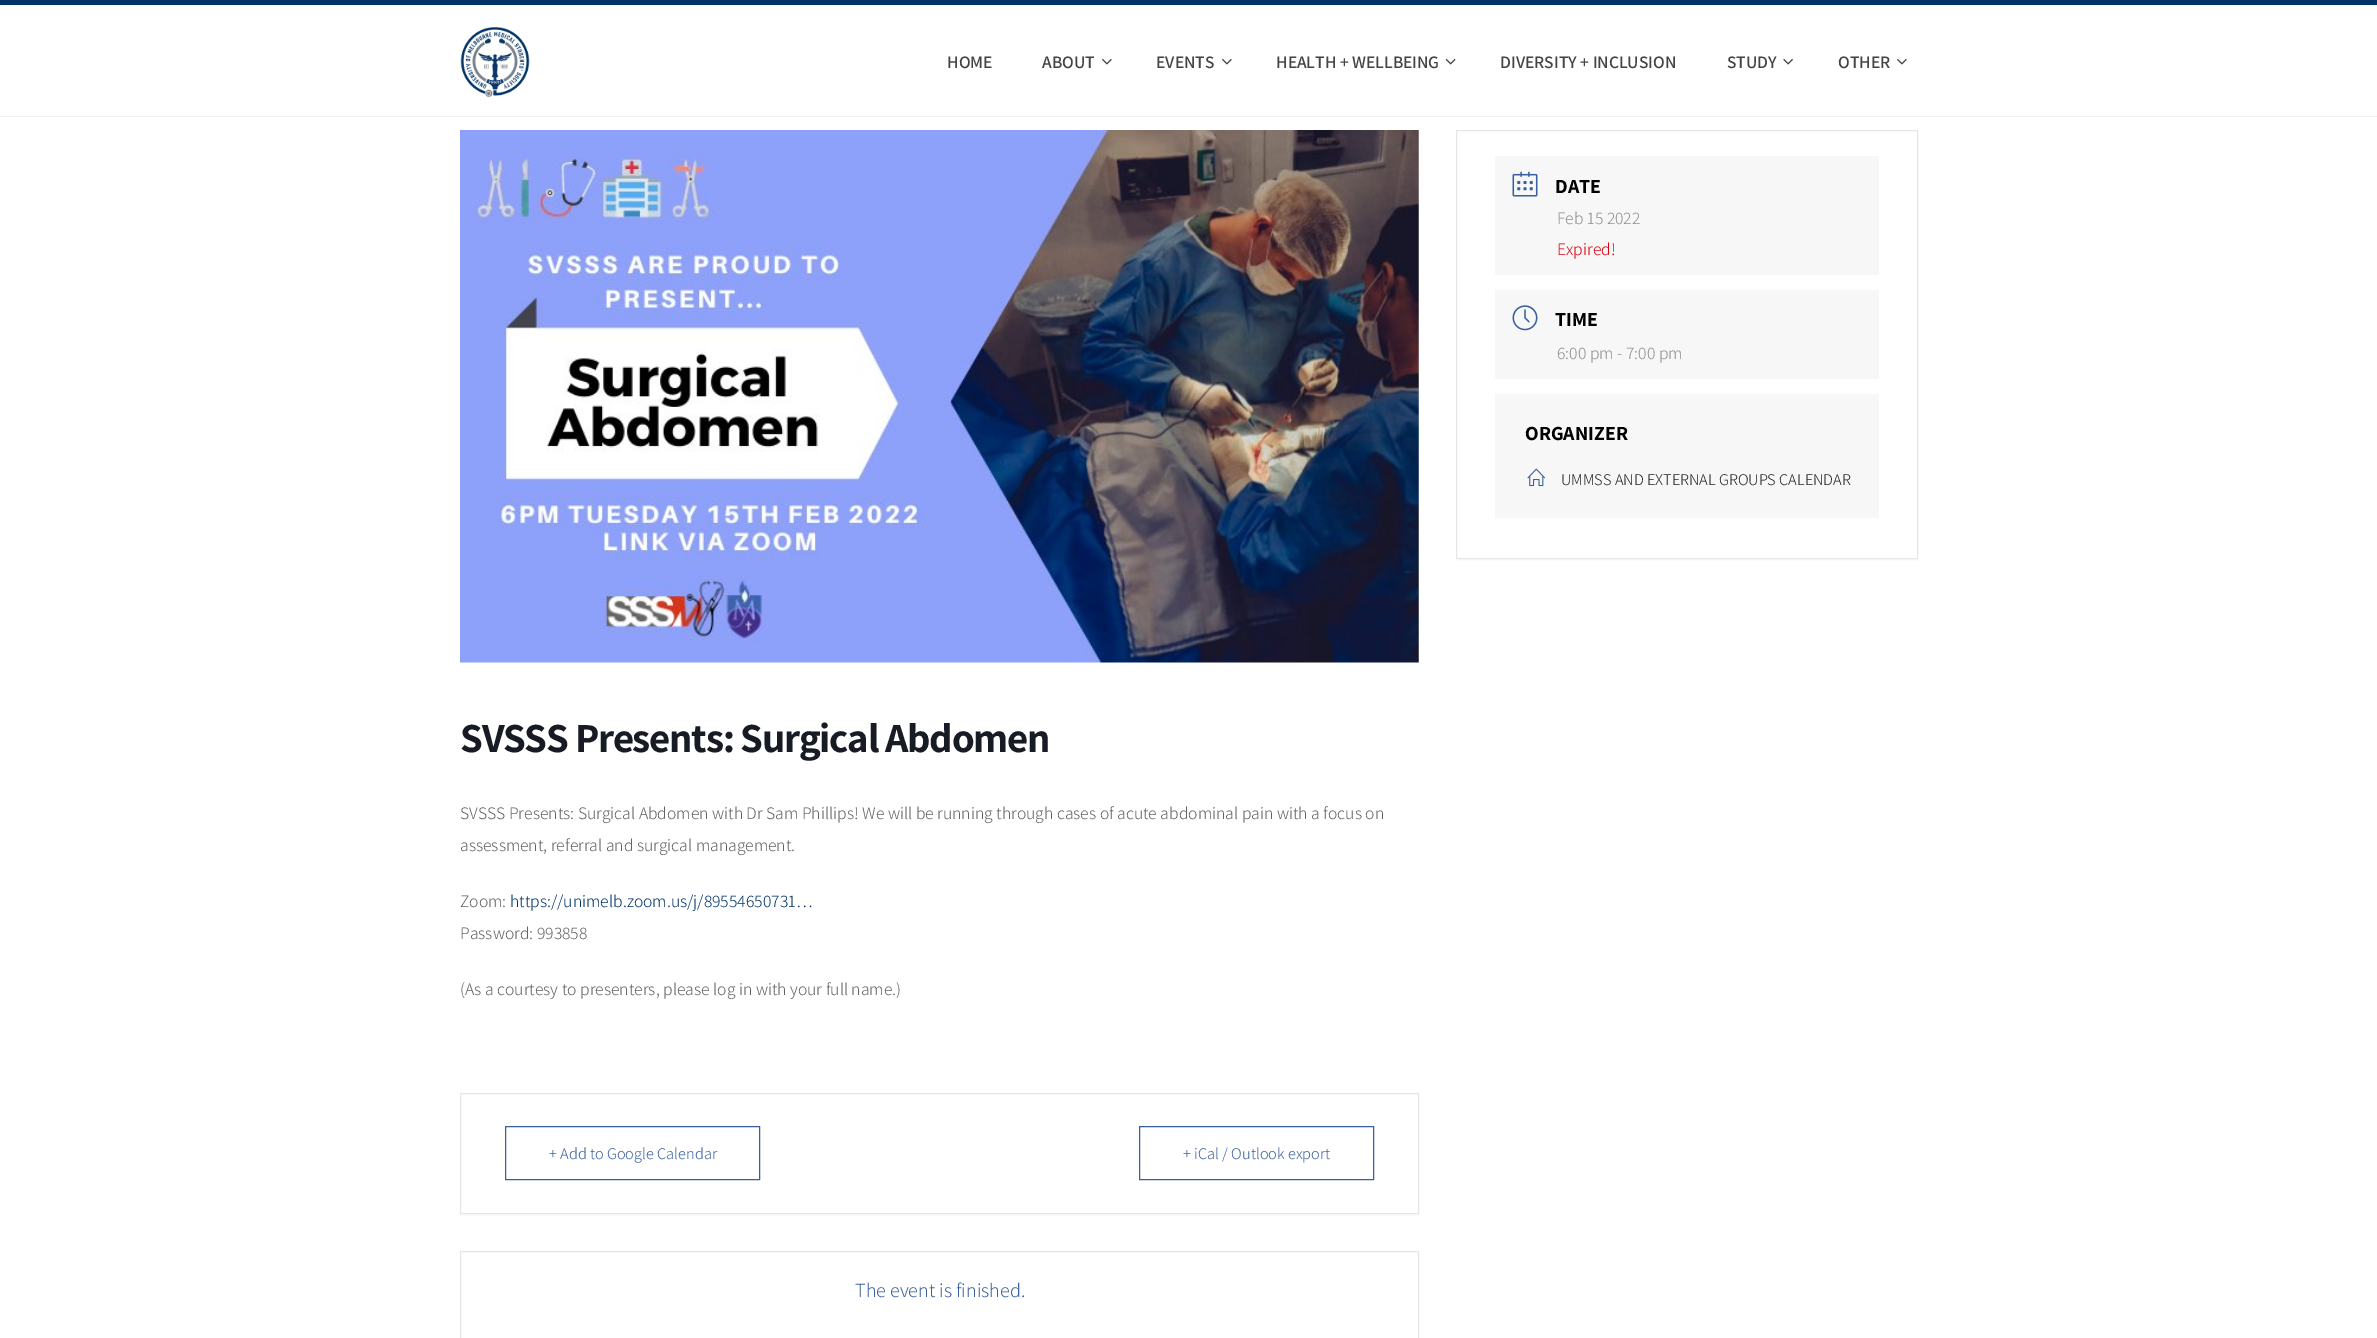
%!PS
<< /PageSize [2377 1338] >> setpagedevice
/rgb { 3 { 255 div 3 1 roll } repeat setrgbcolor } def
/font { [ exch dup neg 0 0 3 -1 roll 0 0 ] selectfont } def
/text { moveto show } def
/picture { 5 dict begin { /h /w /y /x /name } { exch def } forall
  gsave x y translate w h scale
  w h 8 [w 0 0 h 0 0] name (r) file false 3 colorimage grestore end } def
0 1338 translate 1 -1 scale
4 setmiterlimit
255 255 255 rgb
0 0 2377 1338 rectfill
0 51 102 rgb
0 0 2377 5 rectfill
241 241 241 rgb
0 116 2377 1 rectfill
(img_01.rgb) 460 27 70 71 picture
(img_02.rgb) 1102 58 10 7 picture
(img_02.rgb) 1222 58 10 7 picture
(img_03.rgb) 1445 58 11 7 picture
(img_04.rgb) 1783 58 10 7 picture
(img_02.rgb) 1897 58 10 7 picture
251 251 251 rgb
1456 133 moveto 0 428 rlineto 462 0 rlineto 0 -428 rlineto 0 426 rlineto -462 0 rlineto closepath fill
230 230 230 rgb
1456.5 130.5 461 428 rectstroke
247 247 247 rgb
1495 156 384 119 rectfill
(img_05.rgb) 1512 171 26 26 picture
1495 290 384 89 rectfill
(img_06.rgb) 1512 305 26 26 picture
1495 394 384 124 rectfill
(img_07.rgb) 1527 468 18 19 picture
(img_08.rgb) 460 130 959 533 picture
251 251 251 rgb
460 1214 moveto 0 2 rlineto 959 0 rlineto 0 -121 rlineto 0 119 rlineto closepath fill
230 230 230 rgb
460.5 1093.5 958 120 rectstroke
58 96 159 rgb
505.5 1126.5 254 53 rectstroke
1139.5 1126.5 234 53 rectstroke
230 230 230 rgb
460.5 1251.5 958 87 rectstroke
/Assistant-SemiBold 17.5 font
68 68 68 rgb
(HOME) 947 68 text
(ABOUT) 1042 68 text
(EVENTS) 1156 68 text
(HEALTH + WELLBEING) 1276 68 text
(DIVERSITY + INCLUSION) 1500 68 text
(STUDY) 1727 68 text
(OTHER) 1838 68 text
/Assistant-Bold 20 font
0 0 0 rgb
(DATE) 1555 193 text
/Assistant-Light 17.5 font
141 141 141 rgb
(Feb 15 2022) 1557 224 text
216 0 12 rgb
(Expired!) 1557 255 text
/Assistant-Bold 20 font
0 0 0 rgb
(TIME) 1555 326 text
/Assistant-Light 17.5 font
141 141 141 rgb
(6:00 pm - 7:00 pm) 1557 359 text
/Assistant-Bold 20 font
0 0 0 rgb
(ORGANIZER) 1525 440 text
/Assistant-Light 16.25 font
34 34 34 rgb
(UMMSS AND EXTERNAL GROUPS CALENDAR) 1561 485 text
/Assistant-Bold 41.25 font
23 28 36 rgb
460 752 moveto -1.25 0 (SVSSS Presents: Surgical Abdomen) ashow
/Assistant-Light 17.5 font
97 97 97 rgb
(SVSSS Presents: Surgical Abdomen with Dr Sam Phillips! We will be running through cases of acute abdominal pain with a focus on) 460 819 text
(assessment, referral and surgical management.) 460 851 text
(Zoom:) 460 907 text
0 51 102 rgb
(https://unimelb.zoom.us/j/89554650731…) 510 907 text
97 97 97 rgb
(Password: 993858) 460 939 text
(\(As a courtesy to presenters, please log in with your full name.\)) 460 995 text
/Assistant-Light 16.25 font
58 96 159 rgb
(+ Add to Google Calendar) 549 1159 text
(+ iCal / Outlook export) 1183 1159 text
/Assistant-Light 20 font
(The event is finished.) 855 1297 text
showpage
